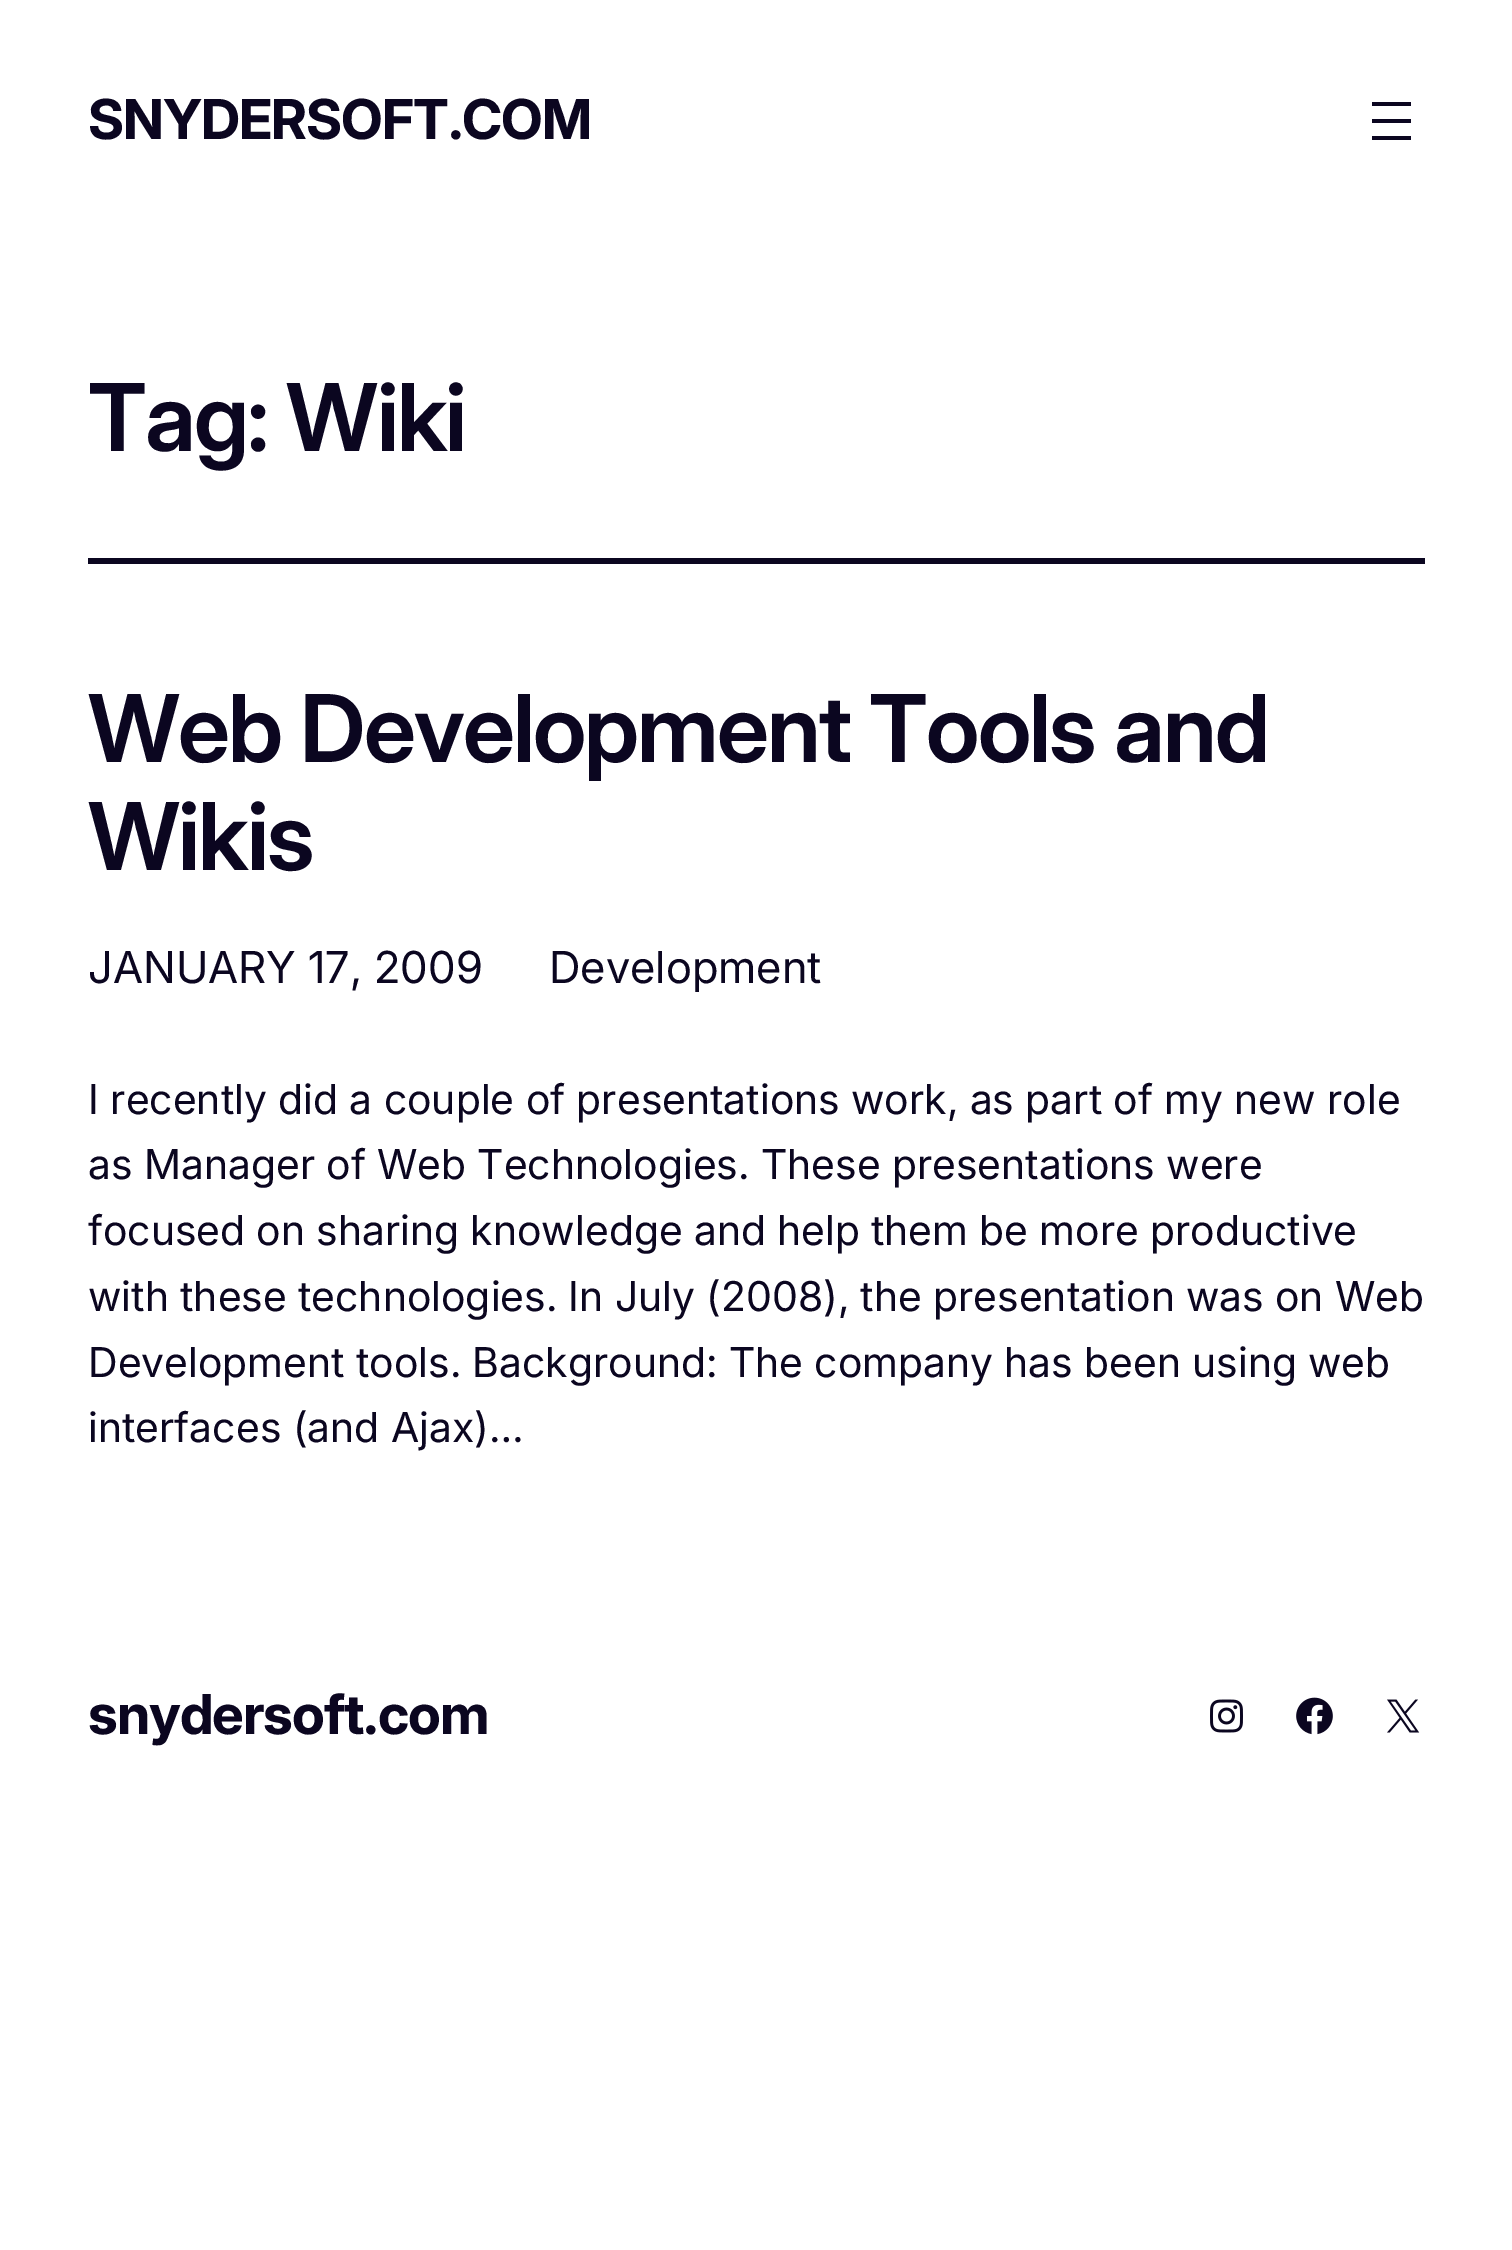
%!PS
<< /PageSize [1512 2250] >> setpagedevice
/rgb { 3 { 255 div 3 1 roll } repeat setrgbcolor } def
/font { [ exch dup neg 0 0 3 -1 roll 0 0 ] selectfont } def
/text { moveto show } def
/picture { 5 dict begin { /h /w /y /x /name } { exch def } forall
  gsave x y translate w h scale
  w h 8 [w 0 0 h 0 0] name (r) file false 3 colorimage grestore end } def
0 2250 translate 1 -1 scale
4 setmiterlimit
255 255 255 rgb
0 0 1512 2250 rectfill
11 6 32 rgb
1372 102 moveto 0 4 rlineto 39 0 rlineto 0 -4 rlineto closepath 1372 123 moveto 39 0 rlineto 0 -4 rlineto -39 0 rlineto closepath 1372 140 moveto 39 0 rlineto 0 -4 rlineto -39 0 rlineto closepath fill
88 558 1337 6 rectfill
(img_01.rgb) 1210 1699 33 34 picture
(img_02.rgb) 1296 1697 37 38 picture
(img_03.rgb) 1387 1699 33 34 picture
/Inter-Bold 55 font
88 139 moveto -1.1 0 (SNYDERSOFT.COM) ashow
/Inter-SemiBold 93.5 font
88 451 moveto -1.9 0 (Tag: Wiki) ashow
88 762 moveto -1.9 0 (Web Development Tools and) ashow
88 870 moveto -1.9 0 (Wikis) ashow
/Inter-Regular 44 font
(JANUARY 17, 2009) 88 983 text
(Development) 549 983 text
/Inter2-Regular 41.15 font
88 1114 moveto -0.1 0 32 (I recently did a couple of presentations work, as part of my new role) widthshow
88 1179 moveto -0.25 0 32 (as Manager of Web Technologies. These presentations were) widthshow
88 1245 moveto -0.25 0 32 (focused on sharing knowledge and help them be more productive) widthshow
88 1311 moveto -0.25 0 32 (with these technologies. In July \(2008\), the presentation was on Web) widthshow
88 1377 moveto -0.25 0 32 (Development tools. Background: The company has been using web) widthshow
(interfaces \(and Ajax\)…) 88 1442 text
/Inter-Bold 55 font
88 1734 moveto -1.1 0 (snydersoft.com) ashow
showpage
